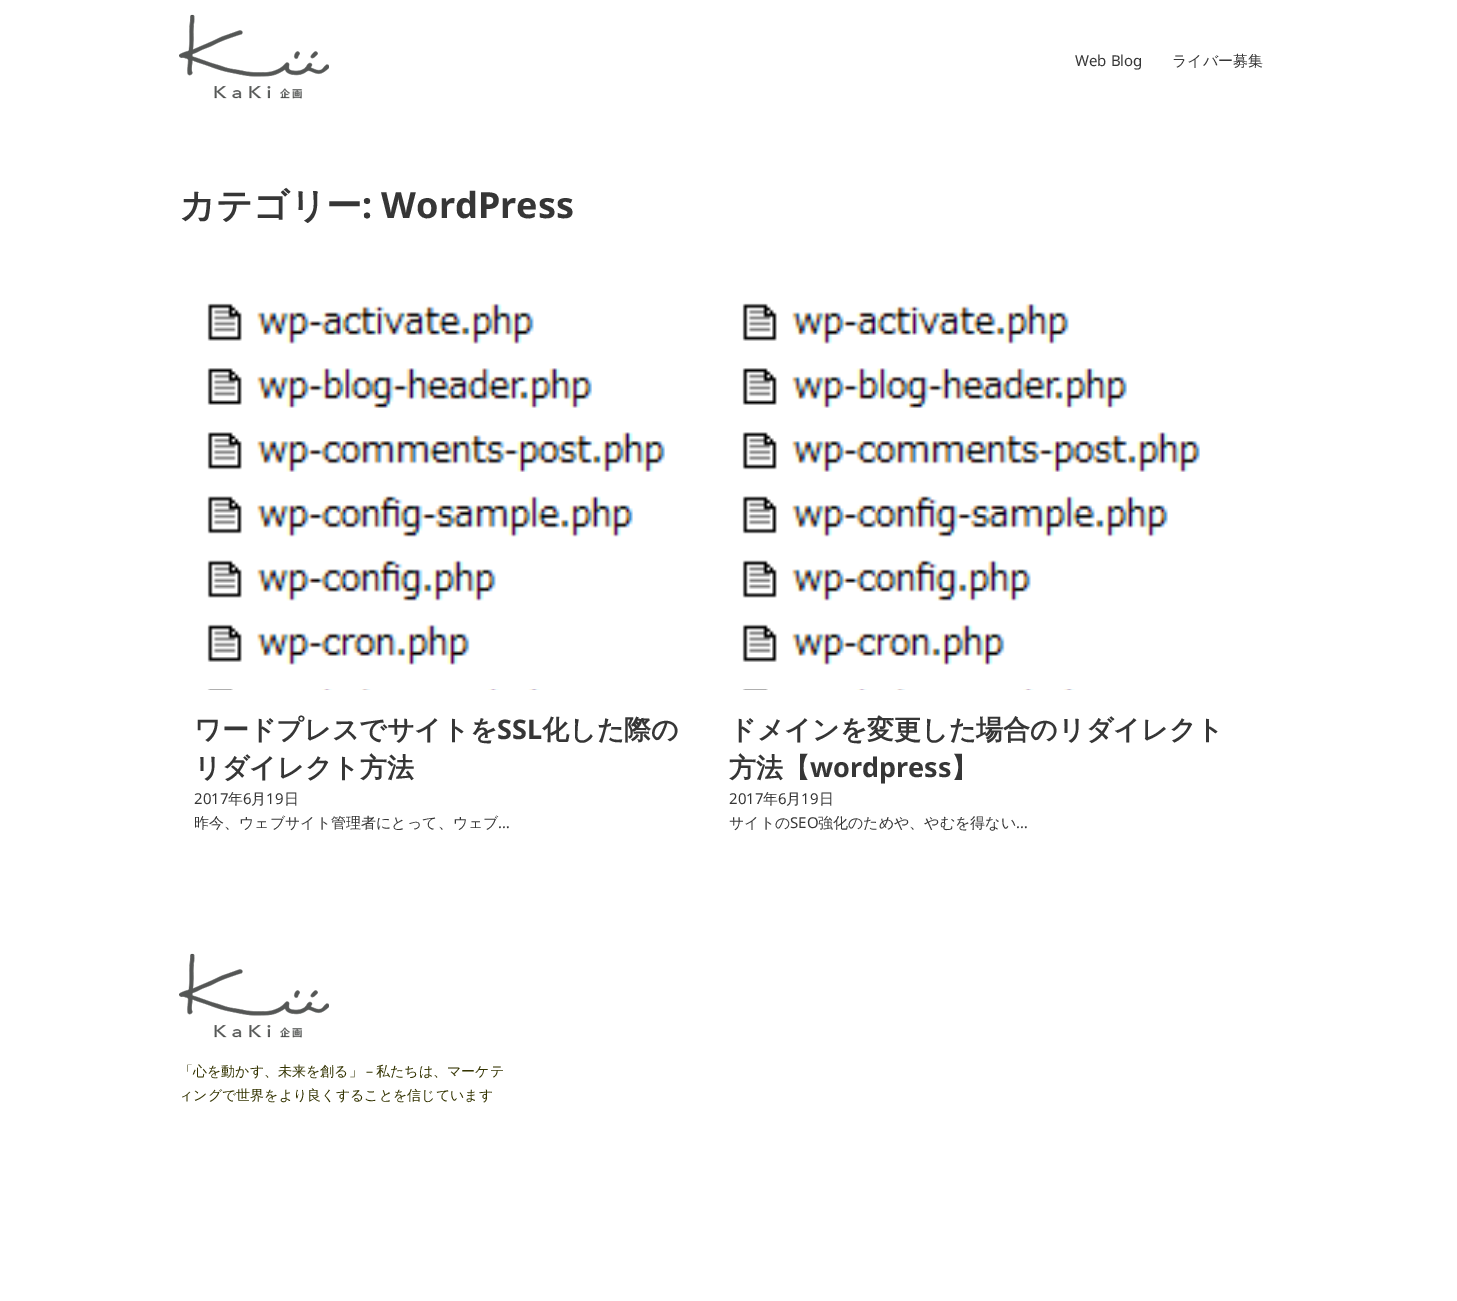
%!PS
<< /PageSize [1457 1301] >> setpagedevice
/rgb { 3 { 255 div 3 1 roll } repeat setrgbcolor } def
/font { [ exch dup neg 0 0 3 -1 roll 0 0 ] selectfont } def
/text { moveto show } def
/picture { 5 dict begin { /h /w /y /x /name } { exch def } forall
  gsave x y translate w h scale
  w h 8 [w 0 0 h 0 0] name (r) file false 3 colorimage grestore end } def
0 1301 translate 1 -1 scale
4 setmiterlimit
255 255 255 rgb
0 0 1457 1301 rectfill
(img_01.rgb) 179 14 150 85 picture
(img_02.rgb) 207 303 458 387 picture
(img_02.rgb) 742 303 458 387 picture
(img_01.rgb) 179 953 150 85 picture
/NotoSans-Regular 15 font
54 54 54 rgb
(Web Blog) 1075 66 text
/WenQuanYiZenHei-Medium 15 font
(ライバー募集) 1172 66 text
/WenQuanYiZenHei-Bold 36 font
(カテゴリー) 179 218 text
/NotoSans-Bold 36 font
(: WordPress) 362 218 text
/WenQuanYiZenHei-Bold 27 font
(ワードプレスでサイトを) 194 739 text
/NotoSans-Bold 27 font
(SSL) 497 739 text
/WenQuanYiZenHei-Bold 27 font
(化した際の) 542 739 text
(リダイレクト方法) 194 777 text
/NotoSans-Regular 15 font
(2017) 194 804 text
/WenQuanYiZenHei-Medium 15 font
(年) 228 804 text
/NotoSans-Regular 15 font
(6) 243 804 text
/WenQuanYiZenHei-Medium 15 font
(月) 251 804 text
/NotoSans-Regular 15 font
(19) 266 804 text
/WenQuanYiZenHei-Medium 15 font
(日) 284 804 text
(昨今、ウェブサイト管理者にとって、ウェブ) 194 828 text
/NotoSans-Regular 15 font
(…) 498 828 text
/WenQuanYiZenHei-Bold 27 font
(ドメインを変更した場合のリダイレクト) 729 739 text
(方法【) 729 777 text
/NotoSans-Bold 27 font
(wordpress) 810 777 text
/WenQuanYiZenHei-Bold 27 font
(】) 951 777 text
/NotoSans-Regular 15 font
(2017) 729 804 text
/WenQuanYiZenHei-Medium 15 font
(年) 763 804 text
/NotoSans-Regular 15 font
(6) 778 804 text
/WenQuanYiZenHei-Medium 15 font
(月) 786 804 text
/NotoSans-Regular 15 font
(19) 801 804 text
/WenQuanYiZenHei-Medium 15 font
(日) 819 804 text
(サイトの) 729 828 text
/NotoSans-Regular 15 font
(SEO) 790 828 text
/WenQuanYiZenHei-Medium 15 font
(強化のためや、やむを得ない) 818 828 text
/NotoSans-Regular 15 font
(…) 1016 828 text
/WenQuanYiZenHei-Medium 14 font
51 51 0 rgb
(「心を動かす、未来を創る」) 179 1076 text
/NotoSans-Regular 14 font
(–) 366 1076 text
/WenQuanYiZenHei-Medium 14 font
(私たちは、マーケテ) 376 1076 text
(ィングで世界をより良くすることを信じています) 179 1100 text
showpage
